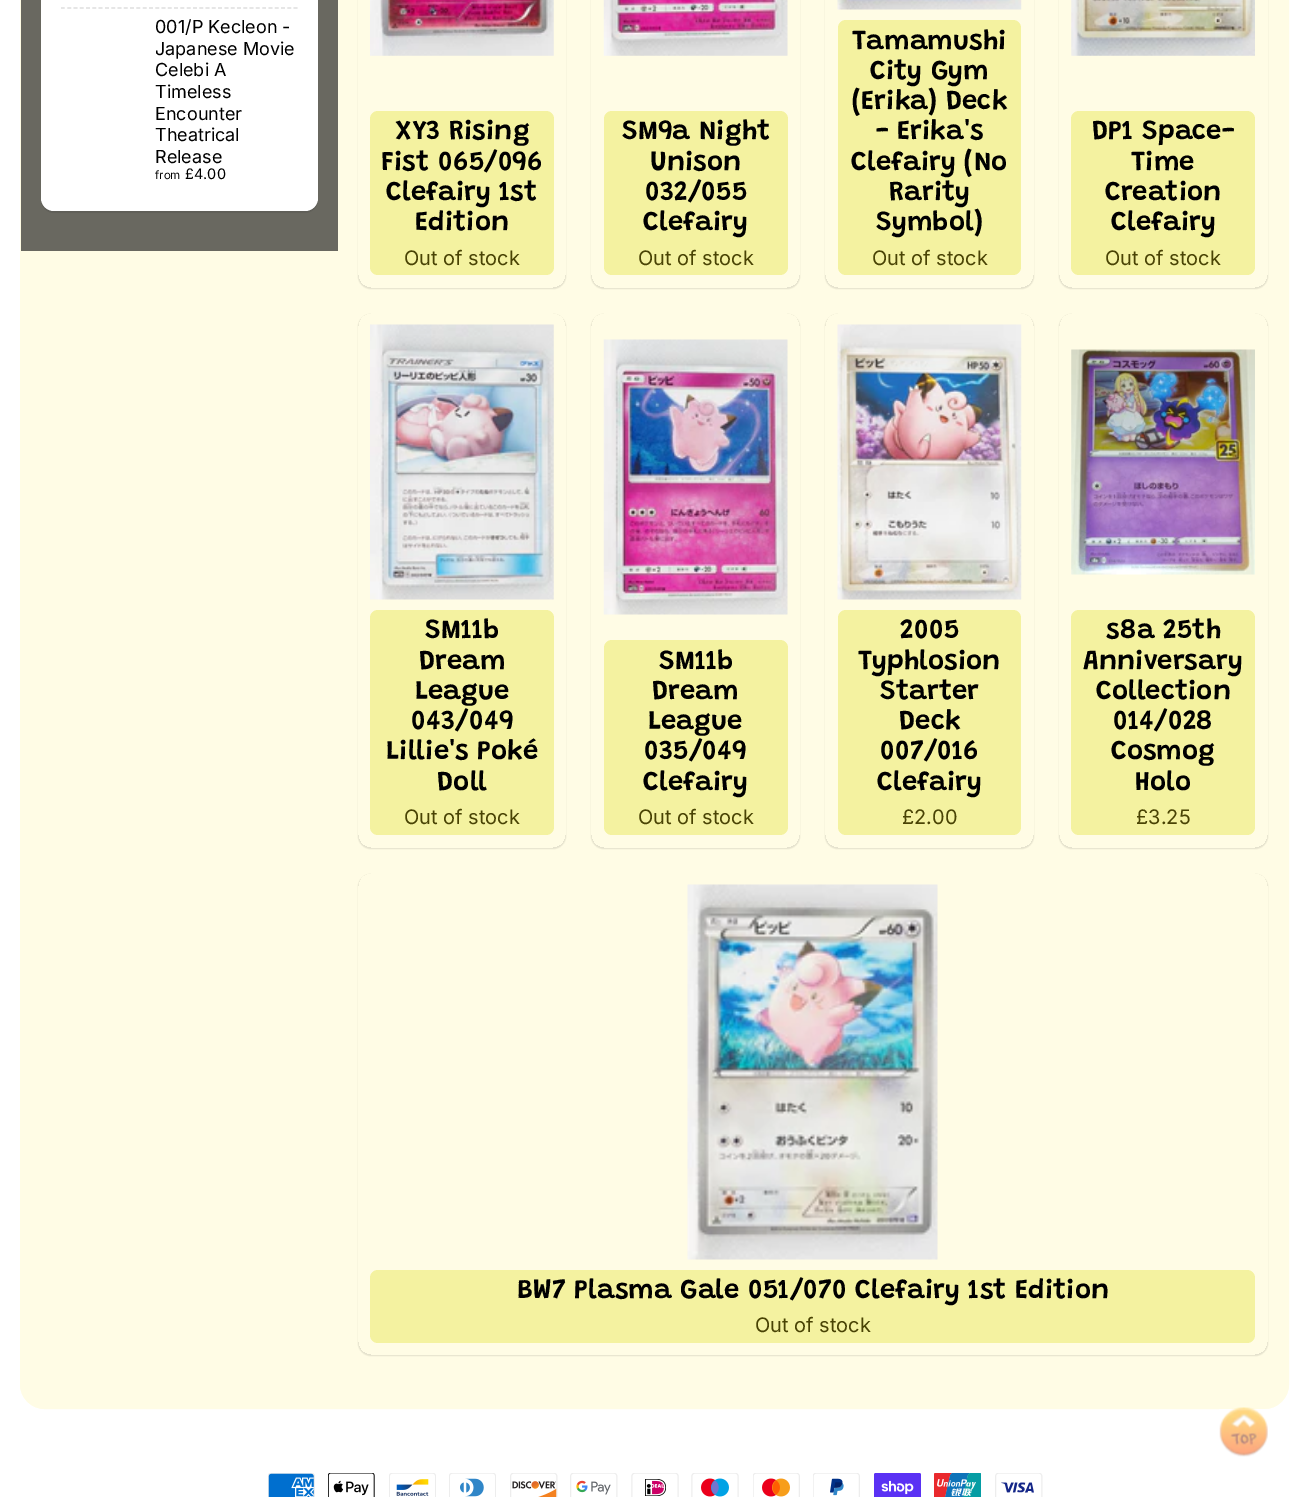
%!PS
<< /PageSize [1308 1497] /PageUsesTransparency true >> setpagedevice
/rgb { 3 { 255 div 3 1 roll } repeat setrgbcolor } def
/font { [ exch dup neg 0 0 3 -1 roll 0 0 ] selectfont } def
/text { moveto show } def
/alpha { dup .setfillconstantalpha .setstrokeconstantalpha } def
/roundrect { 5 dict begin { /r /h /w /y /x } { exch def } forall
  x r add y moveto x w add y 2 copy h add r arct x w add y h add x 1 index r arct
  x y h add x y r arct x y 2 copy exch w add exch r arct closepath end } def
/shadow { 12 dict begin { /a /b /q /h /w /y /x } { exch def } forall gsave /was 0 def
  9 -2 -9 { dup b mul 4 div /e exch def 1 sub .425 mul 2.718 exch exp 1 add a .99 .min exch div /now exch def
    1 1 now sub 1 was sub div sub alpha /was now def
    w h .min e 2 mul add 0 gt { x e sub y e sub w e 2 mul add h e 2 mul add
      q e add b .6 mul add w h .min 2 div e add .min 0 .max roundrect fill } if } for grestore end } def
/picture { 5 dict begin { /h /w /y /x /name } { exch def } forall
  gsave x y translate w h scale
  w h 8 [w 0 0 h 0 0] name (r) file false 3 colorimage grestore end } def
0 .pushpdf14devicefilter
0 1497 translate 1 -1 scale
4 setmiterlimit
255 255 255 rgb
0 0 1308 1497 rectfill
255 252 229 rgb
20 -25 1269 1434 25 roundrect fill
0.7 alpha
20.5 -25.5 1268 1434 24.5 roundrect stroke
1 alpha
105 104 96 rgb
21 0 317 251 rectfill
0 0 0 rgb
41 -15 277 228 13 0.5 0.1 shadow
255 255 255 rgb
41 -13 277 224 13 roundrect fill
221 221 221 rgb
1.2 setlinewidth
[3.75 2.54] 0 setdash
61 8 moveto 236.5 0 rlineto stroke
gsave
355 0 moveto 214 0 rlineto 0 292 rlineto -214 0 rlineto closepath 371 -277 moveto 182 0 rlineto 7 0 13 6 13 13 rcurveto 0 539 rlineto 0 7 -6 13 -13 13 rcurveto -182 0 rlineto -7 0 -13 -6 -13 -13 rcurveto 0 -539 rlineto 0 -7 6 -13 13 -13 rcurveto closepath eoclip newpath
0 0 0 rgb
358 -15 208 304 13 0.5 0.1 shadow
grestore
(img_01.rgb) 370 0 184 56 picture
244 242 160 rgb
370 111 184 164 8 roundrect fill
gsave
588 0 moveto 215 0 rlineto 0 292 rlineto -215 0 rlineto closepath 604 -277 moveto 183 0 rlineto 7 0 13 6 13 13 rcurveto 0 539 rlineto 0 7 -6 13 -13 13 rcurveto -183 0 rlineto -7 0 -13 -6 -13 -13 rcurveto 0 -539 rlineto 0 -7 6 -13 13 -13 rcurveto closepath eoclip newpath
0 0 0 rgb
591 -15 209 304 13 0.5 0.1 shadow
grestore
(img_02.rgb) 603 0 185 56 picture
604 111 184 164 8 roundrect fill
gsave
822 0 moveto 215 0 rlineto 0 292 rlineto -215 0 rlineto closepath 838 -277 moveto 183 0 rlineto 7 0 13 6 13 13 rcurveto 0 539 rlineto 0 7 -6 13 -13 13 rcurveto -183 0 rlineto -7 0 -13 -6 -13 -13 rcurveto 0 -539 rlineto 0 -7 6 -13 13 -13 rcurveto closepath eoclip newpath
0 0 0 rgb
825 -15 209 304 13 0.5 0.1 shadow
grestore
(img_03.rgb) 837 0 185 10 picture
838 20 183 255 8 roundrect fill
gsave
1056 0 moveto 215 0 rlineto 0 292 rlineto -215 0 rlineto closepath 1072 -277 moveto 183 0 rlineto 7 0 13 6 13 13 rcurveto 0 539 rlineto 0 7 -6 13 -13 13 rcurveto -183 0 rlineto -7 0 -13 -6 -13 -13 rcurveto 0 -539 rlineto 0 -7 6 -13 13 -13 rcurveto closepath eoclip newpath
0 0 0 rgb
1059 -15 209 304 13 0.5 0.1 shadow
grestore
(img_04.rgb) 1071 0 184 56 picture
1071 111 184 164 8 roundrect fill
gsave
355 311 moveto 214 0 rlineto 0 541 rlineto -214 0 rlineto closepath 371 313 moveto 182 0 rlineto 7 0 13 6 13 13 rcurveto 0 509 rlineto 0 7 -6 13 -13 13 rcurveto -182 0 rlineto -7 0 -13 -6 -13 -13 rcurveto 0 -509 rlineto 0 -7 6 -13 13 -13 rcurveto closepath eoclip newpath
0 0 0 rgb
358 314 208 535 13 0.5 0.1 shadow
grestore
(img_05.rgb) 370 324 184 276 picture
370 610 184 225 8 roundrect fill
gsave
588 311 moveto 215 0 rlineto 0 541 rlineto -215 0 rlineto closepath 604 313 moveto 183 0 rlineto 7 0 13 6 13 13 rcurveto 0 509 rlineto 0 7 -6 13 -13 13 rcurveto -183 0 rlineto -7 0 -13 -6 -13 -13 rcurveto 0 -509 rlineto 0 -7 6 -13 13 -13 rcurveto closepath eoclip newpath
0 0 0 rgb
591 314 209 535 13 0.5 0.1 shadow
grestore
(img_06.rgb) 603 339 185 276 picture
604 640 184 195 8 roundrect fill
gsave
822 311 moveto 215 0 rlineto 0 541 rlineto -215 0 rlineto closepath 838 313 moveto 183 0 rlineto 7 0 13 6 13 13 rcurveto 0 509 rlineto 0 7 -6 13 -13 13 rcurveto -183 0 rlineto -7 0 -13 -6 -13 -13 rcurveto 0 -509 rlineto 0 -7 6 -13 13 -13 rcurveto closepath eoclip newpath
0 0 0 rgb
825 314 209 535 13 0.5 0.1 shadow
grestore
(img_07.rgb) 837 324 185 276 picture
838 610 183 225 8 roundrect fill
gsave
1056 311 moveto 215 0 rlineto 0 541 rlineto -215 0 rlineto closepath 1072 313 moveto 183 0 rlineto 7 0 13 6 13 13 rcurveto 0 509 rlineto 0 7 -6 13 -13 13 rcurveto -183 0 rlineto -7 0 -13 -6 -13 -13 rcurveto 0 -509 rlineto 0 -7 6 -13 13 -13 rcurveto closepath eoclip newpath
0 0 0 rgb
1059 314 209 535 13 0.5 0.1 shadow
grestore
(img_08.rgb) 1071 349 184 226 picture
1071 610 184 225 8 roundrect fill
gsave
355 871 moveto 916 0 rlineto 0 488 rlineto -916 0 rlineto closepath 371 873 moveto 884 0 rlineto 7 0 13 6 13 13 rcurveto 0 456 rlineto 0 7 -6 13 -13 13 rcurveto -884 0 rlineto -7 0 -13 -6 -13 -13 rcurveto 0 -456 rlineto 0 -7 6 -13 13 -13 rcurveto closepath eoclip newpath
0 0 0 rgb
358 874 910 482 13 0.5 0.1 shadow
grestore
(img_09.rgb) 687 884 251 376 picture
370 1270 885 73 8 roundrect fill
(img_10.rgb) 962 1494 2 3 picture
(img_11.rgb) 1219 1407 49 50 picture
(img_12.rgb) 268 1473 47 24 picture
(img_13.rgb) 328 1473 47 24 picture
(img_14.rgb) 389 1473 47 24 picture
(img_15.rgb) 449 1473 47 24 picture
(img_16.rgb) 510 1473 48 24 picture
(img_17.rgb) 570 1473 48 24 picture
(img_18.rgb) 631 1473 48 24 picture
(img_19.rgb) 691 1473 48 24 picture
(img_20.rgb) 753 1473 47 24 picture
(img_21.rgb) 813 1473 47 24 picture
(img_22.rgb) 874 1473 47 24 picture
(img_23.rgb) 934 1473 47 24 picture
(img_24.rgb) 995 1473 48 24 picture
/Inter-Regular 18 font
0 0 0 rgb
(001/P Kecleon -) 155 33 text
(Japanese Movie) 155 55 text
(Celebi A) 155 76 text
(Timeless) 155 98 text
(Encounter) 155 120 text
(Theatrical) 155 141 text
(Release) 155 163 text
/Inter-Regular 11.5 font
(from) 155 179 text
/Inter-Regular 14.5 font
(£4.00) 185 179 text
/Grandstander-SemiBold 27.5 font
(XY3 Rising) 395 139 text
(Fist 065/096) 381 170 text
(Clefairy 1st) 386 200 text
(Edition) 415 230 text
/Inter-Regular 20 font
73 67 4 rgb
(Out of stock) 404 265 text
/Grandstander-SemiBold 27.5 font
0 0 0 rgb
(SM9a Night) 622 139 text
(Unison) 650 170 text
(032/055) 645 200 text
(Clefairy) 643 230 text
/Inter-Regular 20 font
73 67 4 rgb
(Out of stock) 638 265 text
/Grandstander-SemiBold 27.5 font
0 0 0 rgb
(Tamamushi) 852 49 text
(City Gym) 870 79 text
(\(Erika\) Deck) 852 109 text
(- Erika's) 876 139 text
(Clefairy \(No) 851 170 text
(Rarity) 889 200 text
(Symbol\)) 876 230 text
/Inter-Regular 20 font
73 67 4 rgb
(Out of stock) 872 265 text
/Grandstander-SemiBold 27.5 font
0 0 0 rgb
(DP1 Space-) 1092 139 text
(Time) 1131 170 text
(Creation) 1105 200 text
(Clefairy) 1111 230 text
/Inter-Regular 20 font
73 67 4 rgb
(Out of stock) 1105 265 text
/Grandstander-SemiBold 27.5 font
0 0 0 rgb
(SM11b) 425 638 text
(Dream) 419 669 text
(League) 415 699 text
(043/049) 411 729 text
(Lillie's Poké) 386 759 text
(Doll) 437 790 text
/Inter-Regular 20 font
73 67 4 rgb
(Out of stock) 404 824 text
/Grandstander-SemiBold 27.5 font
0 0 0 rgb
(SM11b) 659 669 text
(Dream) 652 699 text
(League) 648 729 text
(035/049) 644 759 text
(Clefairy) 643 790 text
/Inter-Regular 20 font
73 67 4 rgb
(Out of stock) 638 824 text
/Grandstander-SemiBold 27.5 font
0 0 0 rgb
(2005) 900 638 text
(Typhlosion) 858 669 text
(Starter) 880 699 text
(Deck) 899 729 text
(007/016) 880 759 text
(Clefairy) 877 790 text
/Inter-Regular 20 font
73 67 4 rgb
(£2.00) 902 824 text
/Grandstander-SemiBold 27.5 font
0 0 0 rgb
(s8a 25th) 1106 638 text
(Anniversary) 1083 669 text
(Collection) 1096 699 text
(014/028) 1113 729 text
(Cosmog) 1111 759 text
(Holo) 1135 790 text
/Inter-Regular 20 font
73 67 4 rgb
(£3.25) 1136 824 text
/Grandstander-SemiBold 27.5 font
0 0 0 rgb
(BW7 Plasma Gale 051/070 Clefairy 1st Edition) 517 1298 text
/Inter-Regular 20 font
73 67 4 rgb
(Out of stock) 755 1332 text
.poppdf14devicefilter showpage
